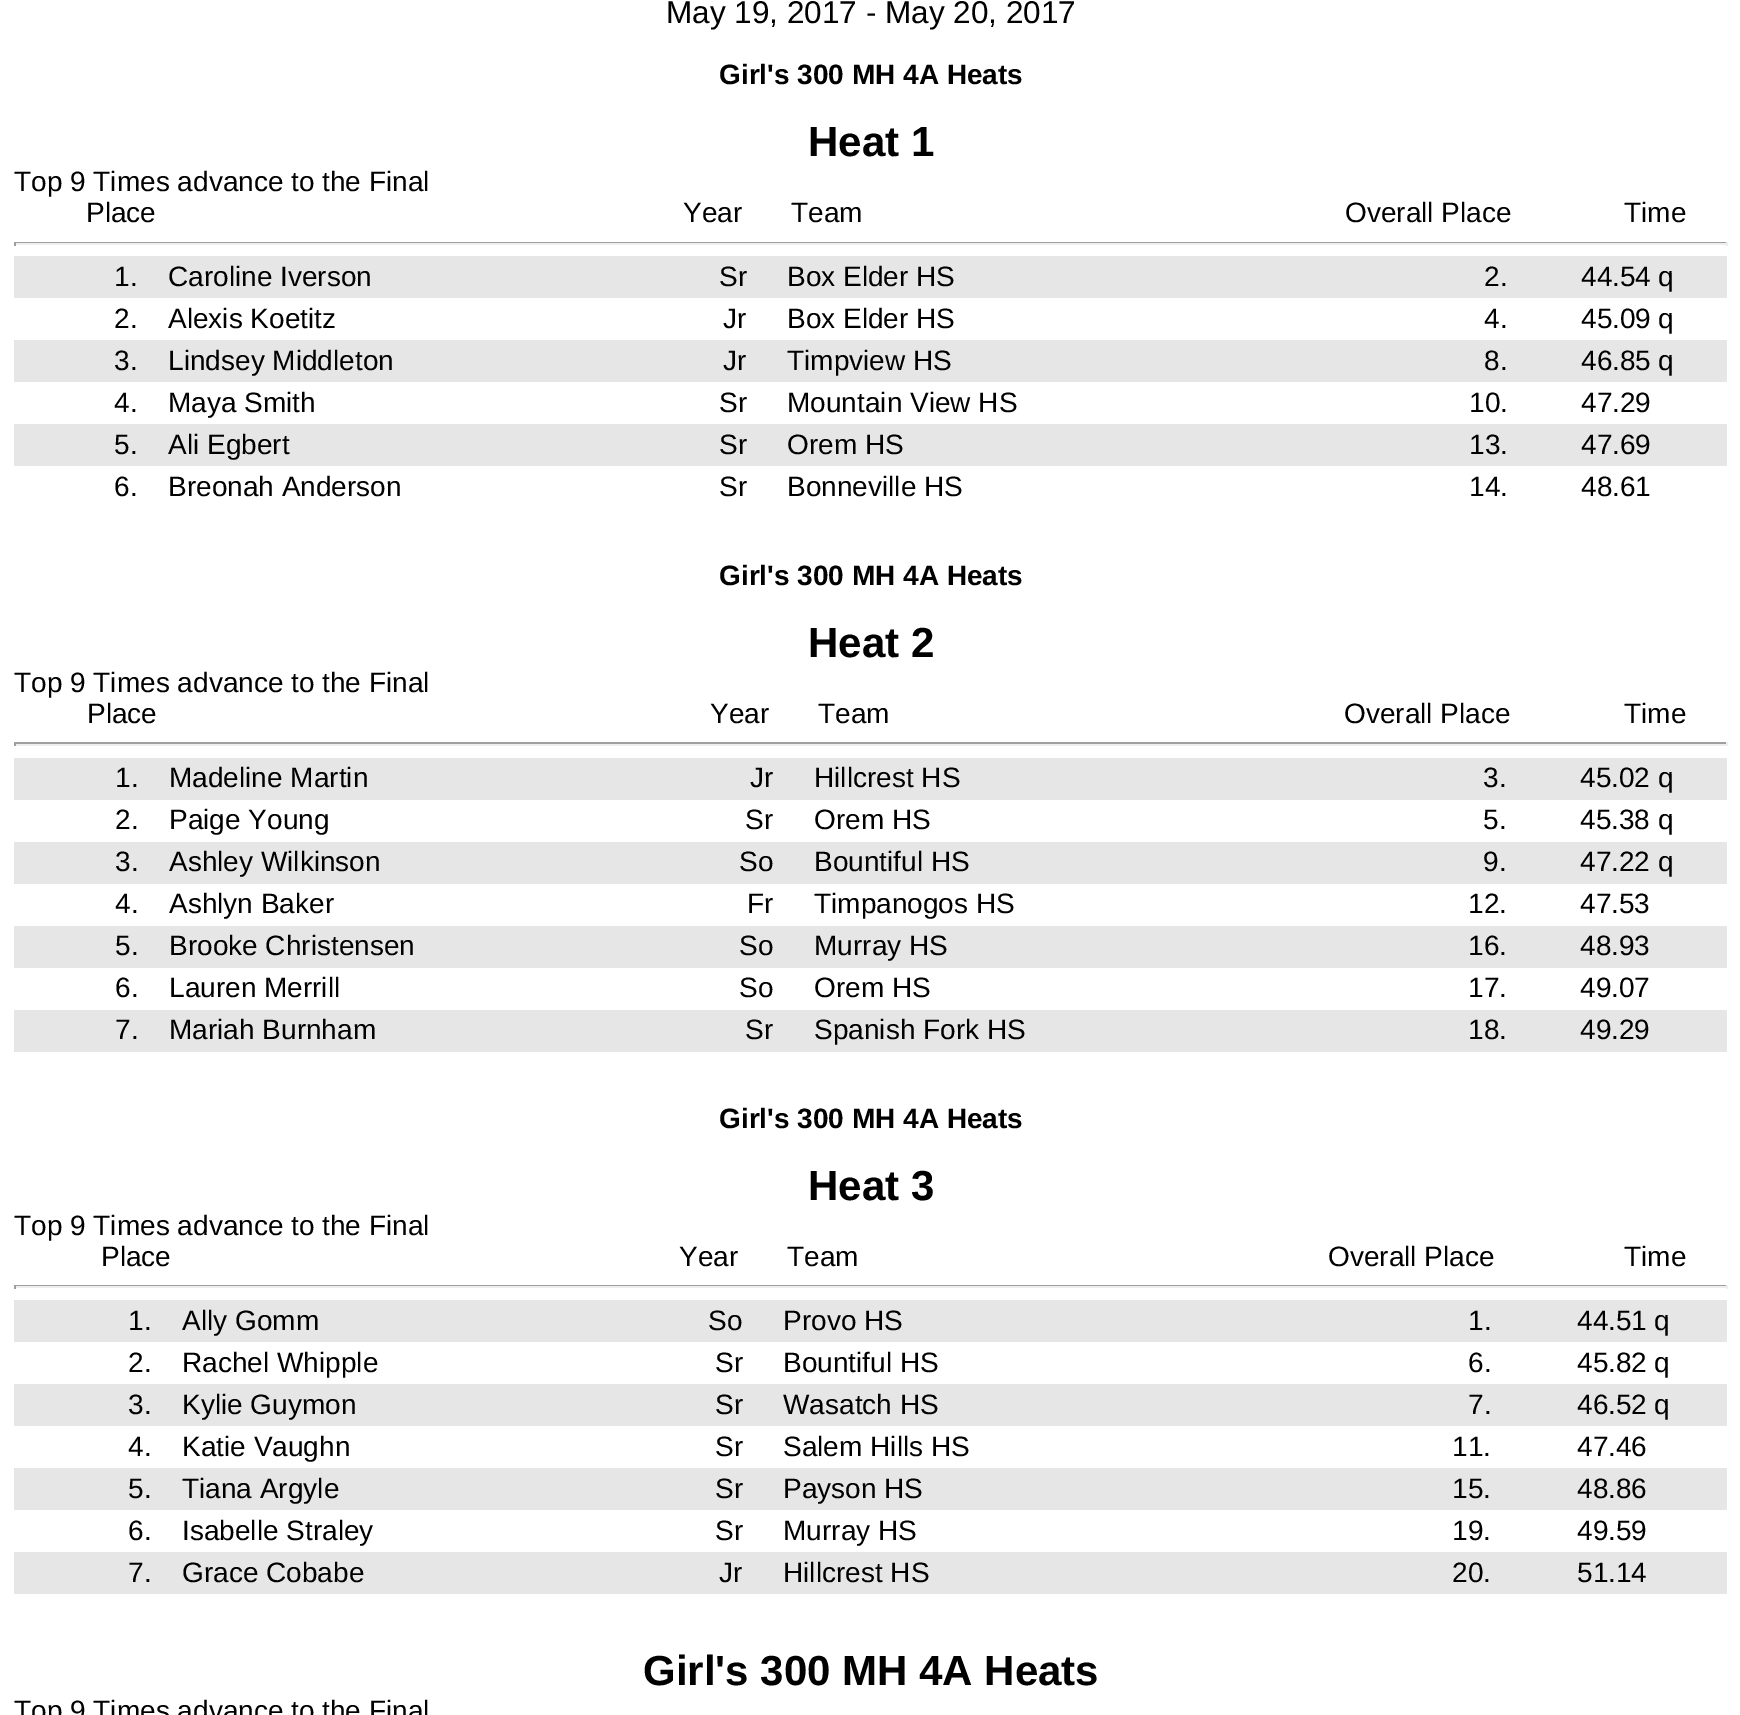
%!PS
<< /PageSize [1740 1715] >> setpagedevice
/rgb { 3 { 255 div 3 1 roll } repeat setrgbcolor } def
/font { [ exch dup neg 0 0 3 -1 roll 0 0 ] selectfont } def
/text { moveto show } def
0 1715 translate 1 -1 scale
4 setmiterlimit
255 255 255 rgb
0 0 1740 1715 rectfill
159 159 159 rgb
14 242 1713 1 rectfill
238 238 238 rgb
1726 242 2 4 rectfill
14 243 1713 2 rectfill
159 159 159 rgb
14 242 2 4 rectfill
230 230 230 rgb
14 256 1713 42 rectfill
14 340 1713 42 rectfill
14 424 1713 42 rectfill
159 159 159 rgb
14 742 1713 2 rectfill
238 238 238 rgb
1726 742 2 4 rectfill
14 744 1713 2 rectfill
159 159 159 rgb
14 742 2 4 rectfill
230 230 230 rgb
14 758 1713 42 rectfill
14 842 1713 42 rectfill
14 926 1713 42 rectfill
14 1010 1713 42 rectfill
159 159 159 rgb
14 1285 1713 1 rectfill
238 238 238 rgb
1726 1285 2 4 rectfill
14 1286 1713 2 rectfill
159 159 159 rgb
14 1285 2 4 rectfill
230 230 230 rgb
14 1300 1713 42 rectfill
14 1384 1713 42 rectfill
14 1468 1713 42 rectfill
14 1552 1713 42 rectfill
/LiberationSans-Regular 31.5 font
0 0 0 rgb
(May 19, 2017 - May 20, 2017) 666 23 text
/LiberationSans-Bold 28 font
(Girl's 300 MH 4A Heats) 719 84 text
/LiberationSans-Bold 42 font
(Heat 1) 808 156 text
/LiberationSans-Regular 28 font
(Top 9 Times advance to the Final) 14 191 text
(Place) 86 222 text
(Year) 683 222 text
(Team) 791 222 text
(Overall Place) 1345 222 text
(Time) 1624 222 text
(1.) 114 286 text
(Caroline Iverson) 168 286 text
(Sr) 719 286 text
(Box Elder HS) 787 286 text
(2.) 1484 286 text
(44.54) 1581 286 text
(q) 1658 286 text
(2.) 114 328 text
(Alexis Koetitz) 168 328 text
(Jr) 723 328 text
(Box Elder HS) 787 328 text
(4.) 1484 328 text
(45.09) 1581 328 text
(q) 1658 328 text
(3.) 114 370 text
(Lindsey Middleton) 168 370 text
(Jr) 723 370 text
(Timpview HS) 787 370 text
(8.) 1484 370 text
(46.85) 1581 370 text
(q) 1658 370 text
(4.) 114 412 text
(Maya Smith) 168 412 text
(Sr) 719 412 text
(Mountain View HS) 787 412 text
(10.) 1469 412 text
(47.29) 1581 412 text
(5.) 114 454 text
(Ali Egbert) 168 454 text
(Sr) 719 454 text
(Orem HS) 787 454 text
(13.) 1469 454 text
(47.69) 1581 454 text
(6.) 114 496 text
(Breonah Anderson) 168 496 text
(Sr) 719 496 text
(Bonneville HS) 787 496 text
(14.) 1469 496 text
(48.61) 1581 496 text
/LiberationSans-Bold 28 font
(Girl's 300 MH 4A Heats) 719 585 text
/LiberationSans-Bold 42 font
(Heat 2) 808 657 text
/LiberationSans-Regular 28 font
(Top 9 Times advance to the Final) 14 692 text
(Place) 87 723 text
(Year) 710 723 text
(Team) 818 723 text
(Overall Place) 1344 723 text
(Time) 1624 723 text
(1.) 115 787 text
(Madeline Martin) 169 787 text
(Jr) 750 787 text
(Hillcrest HS) 814 787 text
(3.) 1483 787 text
(45.02) 1580 787 text
(q) 1658 787 text
(2.) 115 829 text
(Paige Young) 169 829 text
(Sr) 745 829 text
(Orem HS) 814 829 text
(5.) 1483 829 text
(45.38) 1580 829 text
(q) 1658 829 text
(3.) 115 871 text
(Ashley Wilkinson) 169 871 text
(So) 739 871 text
(Bountiful HS) 814 871 text
(9.) 1483 871 text
(47.22) 1580 871 text
(q) 1658 871 text
(4.) 115 913 text
(Ashlyn Baker) 169 913 text
(Fr) 747 913 text
(Timpanogos HS) 814 913 text
(12.) 1468 913 text
(47.53) 1580 913 text
(5.) 115 955 text
(Brooke Christensen) 169 955 text
(So) 739 955 text
(Murray HS) 814 955 text
(16.) 1468 955 text
(48.93) 1580 955 text
(6.) 115 997 text
(Lauren Merrill) 169 997 text
(So) 739 997 text
(Orem HS) 814 997 text
(17.) 1468 997 text
(49.07) 1580 997 text
(7.) 115 1039 text
(Mariah Burnham) 169 1039 text
(Sr) 745 1039 text
(Spanish Fork HS) 814 1039 text
(18.) 1468 1039 text
(49.29) 1580 1039 text
/LiberationSans-Bold 28 font
(Girl's 300 MH 4A Heats) 719 1128 text
/LiberationSans-Bold 42 font
(Heat 3) 808 1200 text
/LiberationSans-Regular 28 font
(Top 9 Times advance to the Final) 14 1235 text
(Place) 101 1266 text
(Year) 679 1266 text
(Team) 787 1266 text
(Overall Place) 1328 1266 text
(Time) 1624 1266 text
(1.) 128 1330 text
(Ally Gomm) 182 1330 text
(So) 708 1330 text
(Provo HS) 783 1330 text
(1.) 1468 1330 text
(44.51) 1577 1330 text
(q) 1654 1330 text
(2.) 128 1372 text
(Rachel Whipple) 182 1372 text
(Sr) 715 1372 text
(Bountiful HS) 783 1372 text
(6.) 1468 1372 text
(45.82) 1577 1372 text
(q) 1654 1372 text
(3.) 128 1414 text
(Kylie Guymon) 182 1414 text
(Sr) 715 1414 text
(Wasatch HS) 783 1414 text
(7.) 1468 1414 text
(46.52) 1577 1414 text
(q) 1654 1414 text
(4.) 128 1456 text
(Katie Vaughn) 182 1456 text
(Sr) 715 1456 text
(Salem Hills HS) 783 1456 text
(11.) 1452 1456 text
(47.46) 1577 1456 text
(5.) 128 1498 text
(Tiana Argyle) 182 1498 text
(Sr) 715 1498 text
(Payson HS) 783 1498 text
(15.) 1452 1498 text
(48.86) 1577 1498 text
(6.) 128 1540 text
(Isabelle Straley) 182 1540 text
(Sr) 715 1540 text
(Murray HS) 783 1540 text
(19.) 1452 1540 text
(49.59) 1577 1540 text
(7.) 128 1582 text
(Grace Cobabe) 182 1582 text
(Jr) 719 1582 text
(Hillcrest HS) 783 1582 text
(20.) 1452 1582 text
(51.14) 1577 1582 text
/LiberationSans-Bold 42 font
(Girl's 300 MH 4A Heats) 643 1685 text
/LiberationSans-Regular 28 font
(Top 9 Times advance to the Final) 14 1720 text
showpage
